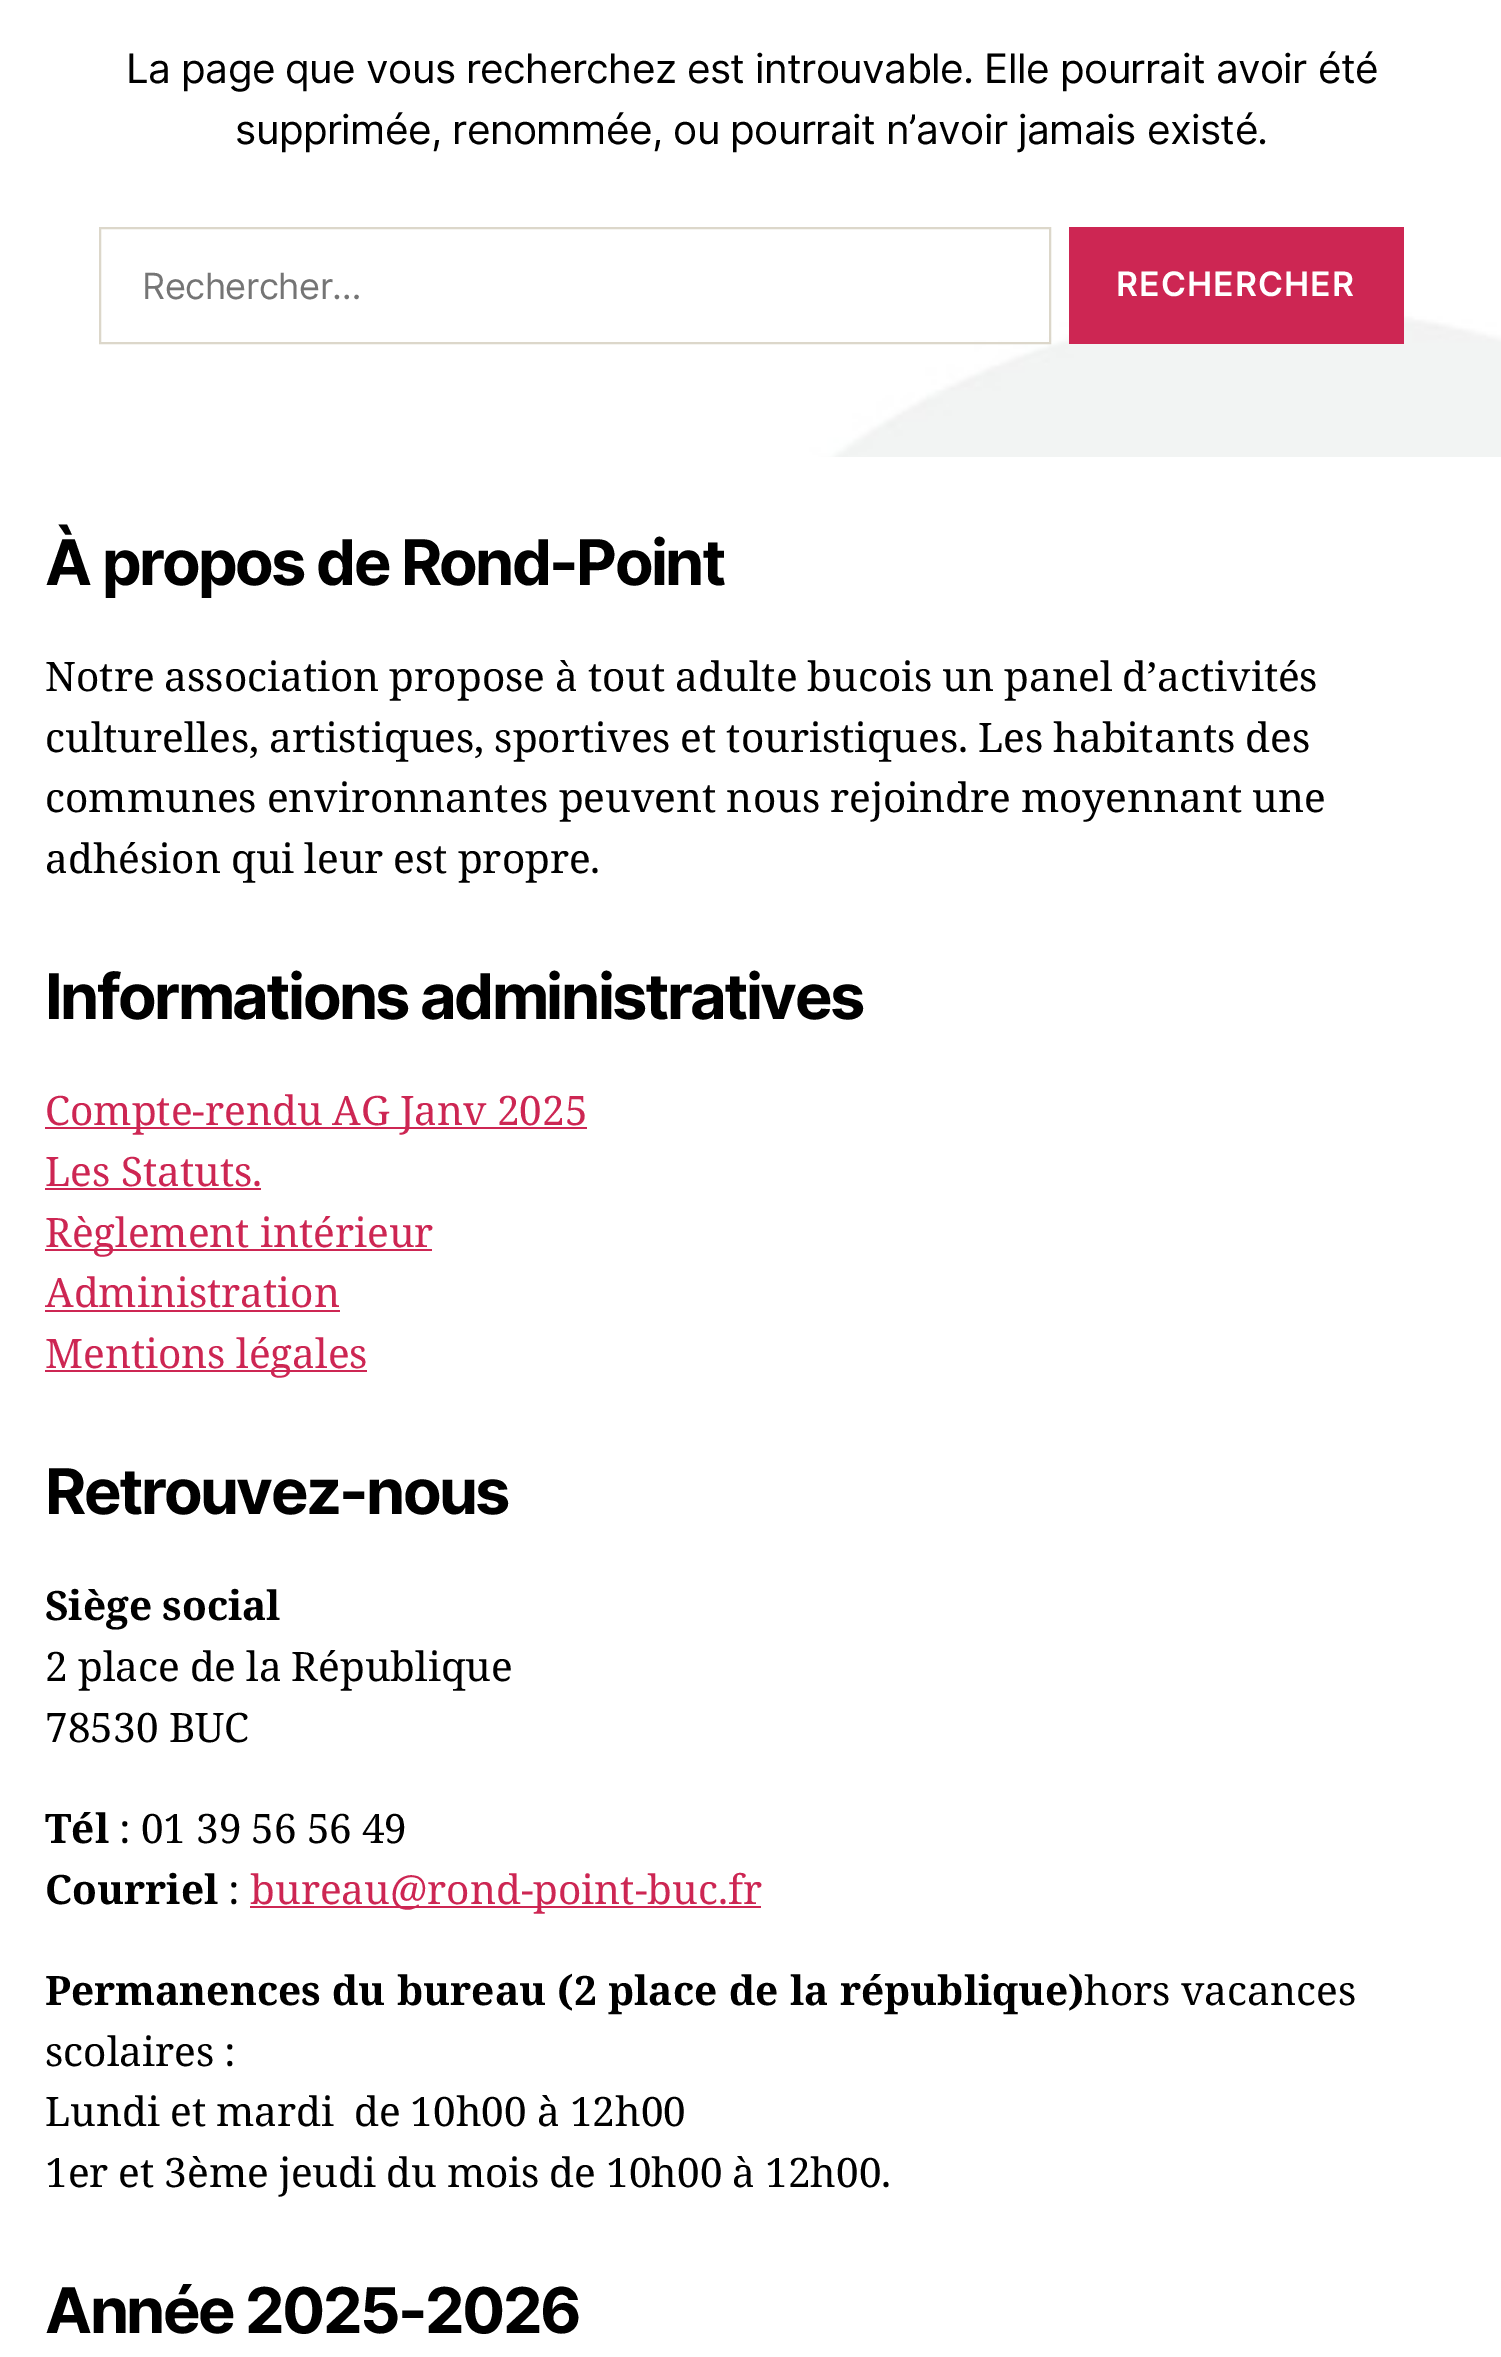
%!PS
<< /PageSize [1501 2357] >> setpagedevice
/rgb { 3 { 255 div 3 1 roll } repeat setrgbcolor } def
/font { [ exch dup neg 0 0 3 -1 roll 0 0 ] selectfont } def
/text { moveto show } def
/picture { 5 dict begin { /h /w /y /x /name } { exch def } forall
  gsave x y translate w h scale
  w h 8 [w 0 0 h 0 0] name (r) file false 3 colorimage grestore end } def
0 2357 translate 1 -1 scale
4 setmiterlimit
255 255 255 rgb
0 0 1501 2357 rectfill
(img_01.rgb) 0 0 1501 457 picture
220 215 202 rgb
2 setlinewidth
100 228 950 115 rectstroke
205 38 83 rgb
1069 227 335 117 rectfill
45 1127 542 2 rectfill
45 1188 216 2 rectfill
45 1249 387 2 rectfill
45 1310 295 2 rectfill
45 1370 322 2 rectfill
250 1906 511 2 rectfill
/Inter-Regular 40.5 font
0 0 0 rgb
126 83 moveto -0.6 0 (La page que vous recherchez est introuvable. Elle pourrait avoir été) ashow
235 144 moveto -0.6 0 (supprimée, renommée, ou pourrait n’avoir jamais existé.) ashow
/Inter-Regular 36 font
117 117 117 rgb
142 299 moveto -0.5 0 (Rechercher…) ashow
/Inter-SemiBold 33.75 font
255 255 255 rgb
1116 296 moveto 1.1 0 (RECHERCHER) ashow
/Inter-Bold 63 font
0 0 0 rgb
45 585 moveto -2.6 0 (À propos de Rond-Point) ashow
/NotoSerif-Regular 40.5 font
45 691 moveto -0.5 0 32 (Notre association propose à tout adulte bucois un panel d’activités) widthshow
45 752 moveto -0.5 0 32 (culturelles, artistiques, sportives et touristiques. Les habitants des) widthshow
45 812 moveto -0.5 0 32 (communes environnantes peuvent nous rejoindre moyennant une) widthshow
45 873 moveto -0.5 0 32 (adhésion qui leur est propre.) widthshow
/Inter-Bold 63 font
45 1019 moveto -2.6 0 (Informations administratives) ashow
/NotoSerif-Regular 40.5 font
205 38 83 rgb
45 1125 moveto -0.5 0 32 (Compte-rendu AG Janv 2025) widthshow
(Les Statuts.) 45 1186 text
(Règlement intérieur) 45 1247 text
(Administration) 45 1307 text
(Mentions légales) 45 1368 text
/Inter-Bold 63 font
0 0 0 rgb
45 1514 moveto -2.6 0 (Retrouvez-nous) ashow
/NotoSerif-Bold 40.5 font
(Siège social) 45 1620 text
/NotoSerif-Regular 40.5 font
45 1681 moveto -0.5 0 32 (2 place de la République) widthshow
(78530 BUC) 45 1742 text
/NotoSerif-Bold 40.5 font
(Tél) 45 1843 text
/NotoSerif-Regular 40.5 font
119 1843 moveto -0.5 0 32 (: 01 39 56 56 49) widthshow
/NotoSerif-Bold 40.5 font
(Courriel) 45 1904 text
/NotoSerif-Regular 40.5 font
(:) 228 1904 text
205 38 83 rgb
(bureau@rond-point-buc.fr) 250 1904 text
/NotoSerif-Bold 40.5 font
0 0 0 rgb
45 2005 moveto 1 0 32 (Permanences du bureau \(2 place de la république\)) widthshow
/NotoSerif-Regular 40.5 font
(hors vacances) 1084 2005 text
(scolaires :) 45 2066 text
45 2126 moveto -0.5 0 32 (Lundi et mardi  de 10h00 à 12h00) widthshow
45 2187 moveto -0.5 0 32 (1er et 3ème jeudi du mois de 10h00 à 12h00.) widthshow
/Inter-Bold 63 font
45 2333 moveto -2.6 0 (Année 2025-2026) ashow
showpage
